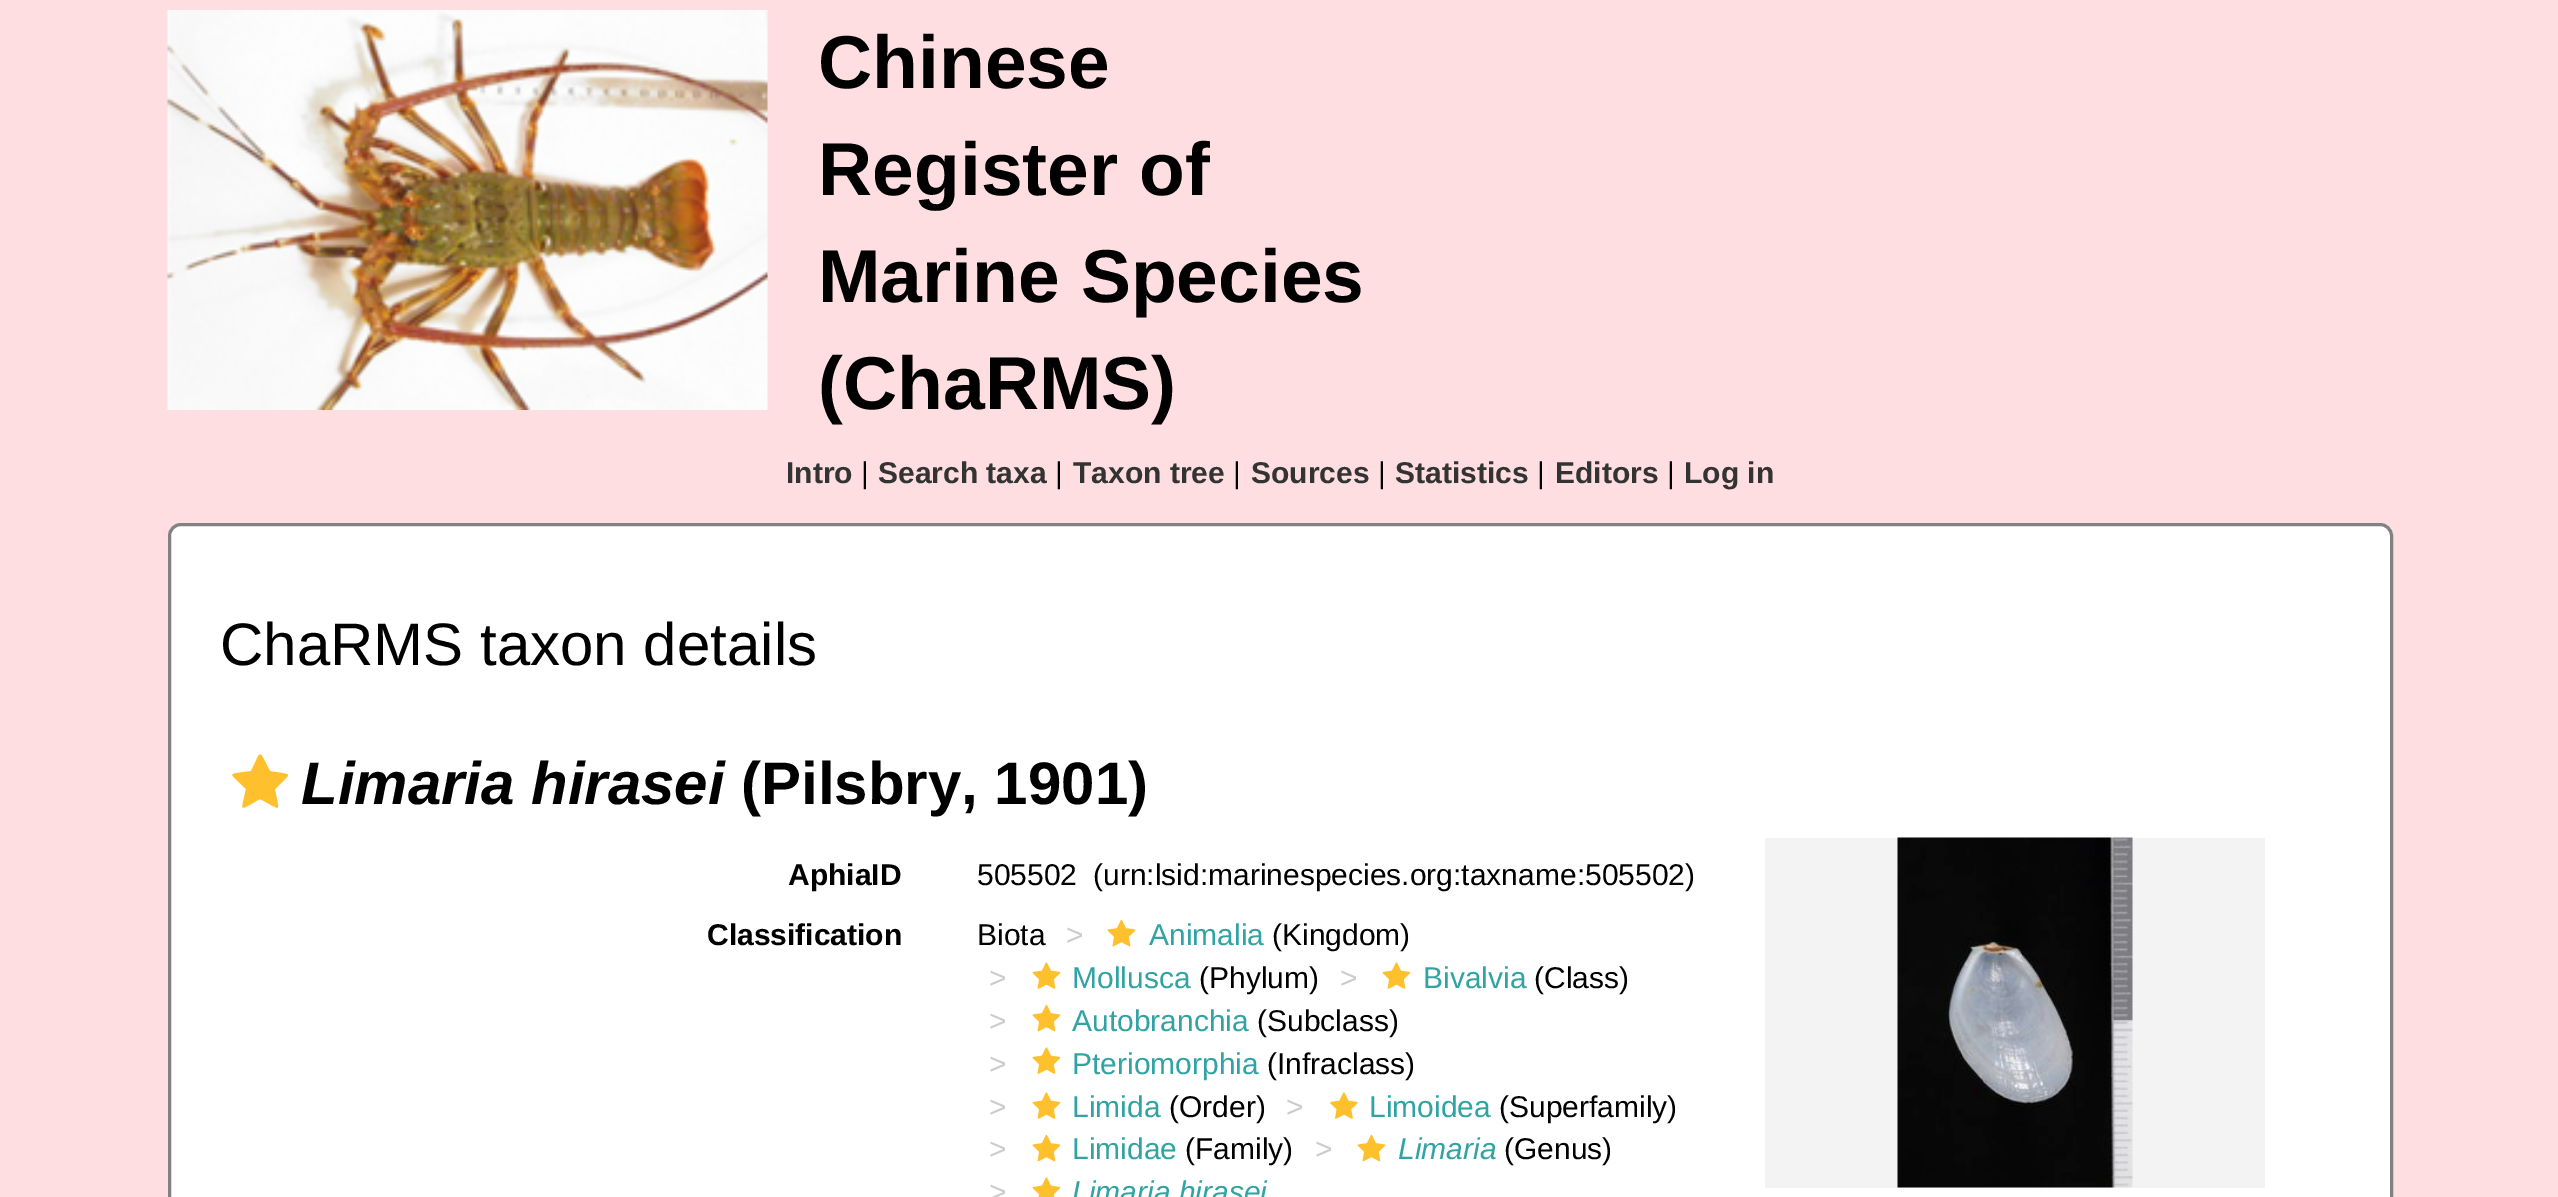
%!PS
<< /PageSize [2558 1197] >> setpagedevice
/rgb { 3 { 255 div 3 1 roll } repeat setrgbcolor } def
/font { [ exch dup neg 0 0 3 -1 roll 0 0 ] selectfont } def
/text { moveto show } def
/roundrect { 5 dict begin { /r /h /w /y /x } { exch def } forall
  x r add y moveto x w add y 2 copy h add r arct x w add y h add x 1 index r arct
  x y h add x y r arct x y 2 copy exch w add exch r arct closepath end } def
/picture { 5 dict begin { /h /w /y /x /name } { exch def } forall
  gsave x y translate w h scale
  w h 8 [w 0 0 h 0 0] name (r) file false 3 colorimage grestore end } def
0 1197 translate 1 -1 scale
4 setmiterlimit
255 222 225 rgb
0 0 2558 1197 rectfill
(img_01.rgb) 167 10 601 400 picture
255 255 255 rgb
169.5 524.5 2222 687 11.5 roundrect gsave fill grestore
130 130 130 rgb
3 setlinewidth
stroke
255 192 45 rgb
288 775 moveto 0 2 -11 12 -13 14 rcurveto 4 24 8 22 -15 10 rcurveto -22 12 -19 14 -14 -10 rcurveto -18 -18 -20 -14 5 -18 rcurveto 11 -22 7 -22 19 0 rcurveto 2 1 18 2 18 4 rcurveto closepath fill
243 243 243 rgb
1765 838 500 350 rectfill
(img_02.rgb) 1897 837 236 351 picture
(img_03.rgb) 1107 919 29 28 picture
(img_04.rgb) 1032 962 29 27 picture
(img_04.rgb) 1382 962 29 27 picture
(img_03.rgb) 1032 1004 29 28 picture
(img_04.rgb) 1032 1047 29 27 picture
(img_04.rgb) 1032 1092 29 27 picture
(img_05.rgb) 1330 1092 28 27 picture
(img_03.rgb) 1032 1134 29 28 picture
(img_03.rgb) 1357 1134 29 28 picture
(img_06.rgb) 1032 1177 29 20 picture
/LiberationSans-Bold 75 font
0 0 0 rgb
(Chinese) 818 88 text
(Register of) 818 195 text
(Marine Species) 818 302 text
(\(ChaRMS\)) 818 409 text
/LiberationSans-Bold 30 font
51 51 51 rgb
(Intro) 786 483 text
/LiberationSans-Regular 30 font
0 0 0 rgb
(|) 861 483 text
/LiberationSans-Bold 30 font
51 51 51 rgb
(Search taxa) 878 483 text
/LiberationSans-Regular 30 font
0 0 0 rgb
(|) 1055 483 text
/LiberationSans-Bold 30 font
51 51 51 rgb
(Taxon tree) 1073 483 text
/LiberationSans-Regular 30 font
0 0 0 rgb
(|) 1233 483 text
/LiberationSans-Bold 30 font
51 51 51 rgb
(Sources) 1251 483 text
/LiberationSans-Regular 30 font
0 0 0 rgb
(|) 1378 483 text
/LiberationSans-Bold 30 font
51 51 51 rgb
(Statistics) 1395 483 text
/LiberationSans-Regular 30 font
0 0 0 rgb
(|) 1537 483 text
/LiberationSans-Bold 30 font
51 51 51 rgb
(Editors) 1555 483 text
/LiberationSans-Regular 30 font
0 0 0 rgb
(|) 1667 483 text
/LiberationSans-Bold 30 font
51 51 51 rgb
(Log in) 1684 483 text
/LiberationSans-Regular 60 font
0 0 0 rgb
(ChaRMS taxon details) 220 665 text
/LiberationSans-BoldItalic 60 font
(Limaria hirasei) 301 804 text
/LiberationSans-Bold 60 font
(\(Pilsbry, 1901\)) 741 804 text
/LiberationSans-Bold 30 font
(AphiaID) 788 885 text
/LiberationSans-Regular 30 font
(505502) 977 885 text
(\(urn:lsid:marinespecies.org:taxname:505502\)) 1093 885 text
/LiberationSans-Bold 30 font
(Classification) 707 945 text
/LiberationSans-Regular 30 font
(Biota) 977 945 text
204 204 204 rgb
(>) 1066 945 text
49 163 163 rgb
(Animalia) 1149 945 text
0 0 0 rgb
(\(Kingdom\)) 1272 945 text
204 204 204 rgb
(>) 989 988 text
49 163 163 rgb
(Mollusca) 1072 988 text
0 0 0 rgb
(\(Phylum\)) 1199 988 text
204 204 204 rgb
(>) 1340 988 text
49 163 163 rgb
(Bivalvia) 1423 988 text
0 0 0 rgb
(\(Class\)) 1534 988 text
204 204 204 rgb
(>) 989 1031 text
49 163 163 rgb
(Autobranchia) 1072 1031 text
0 0 0 rgb
(\(Subclass\)) 1257 1031 text
204 204 204 rgb
(>) 989 1074 text
49 163 163 rgb
(Pteriomorphia) 1072 1074 text
0 0 0 rgb
(\(Infraclass\)) 1267 1074 text
204 204 204 rgb
(>) 989 1117 text
49 163 163 rgb
(Limida) 1072 1117 text
0 0 0 rgb
(\(Order\)) 1169 1117 text
204 204 204 rgb
(>) 1286 1117 text
49 163 163 rgb
(Limoidea) 1369 1117 text
0 0 0 rgb
(\(Superfamily\)) 1499 1117 text
204 204 204 rgb
(>) 989 1159 text
49 163 163 rgb
(Limidae) 1072 1159 text
0 0 0 rgb
(\(Family\)) 1185 1159 text
204 204 204 rgb
(>) 1315 1159 text
/LiberationSans-Italic 30 font
49 163 163 rgb
(Limaria) 1398 1159 text
/LiberationSans-Regular 30 font
0 0 0 rgb
(\(Genus\)) 1504 1159 text
204 204 204 rgb
(>) 989 1202 text
/LiberationSans-Italic 30 font
49 163 163 rgb
(Limaria hirasei) 1072 1202 text
showpage
